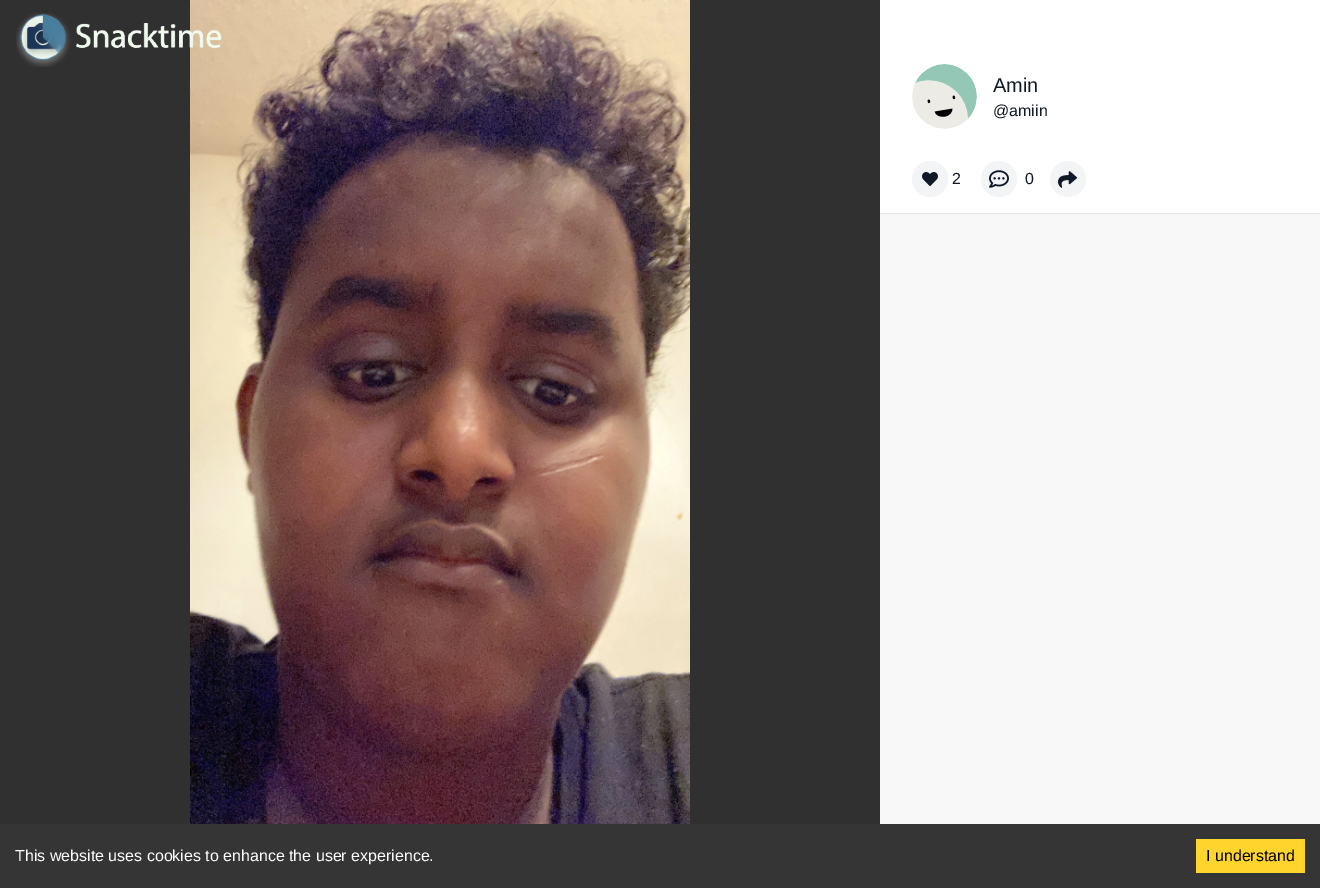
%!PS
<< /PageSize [1320 888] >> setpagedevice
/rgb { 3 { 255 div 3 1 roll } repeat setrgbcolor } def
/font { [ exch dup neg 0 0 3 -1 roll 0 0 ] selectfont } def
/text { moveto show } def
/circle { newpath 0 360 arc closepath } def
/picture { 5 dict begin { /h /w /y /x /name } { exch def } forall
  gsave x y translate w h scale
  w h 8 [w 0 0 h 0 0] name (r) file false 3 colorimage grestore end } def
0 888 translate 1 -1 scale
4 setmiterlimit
255 255 255 rgb
0 0 1320 888 rectfill
48 48 48 rgb
0 0 880 824 rectfill
(img_03.rgb) 190 0 500 824 picture
(img_01.rgb) 16 13 206 54 picture
(img_02.rgb) 16 13 206 54 picture
(img_04.rgb) 912 64 65 65 picture
243 244 246 rgb
930 179 18 circle fill
(img_05.rgb) 922 172 16 14 picture
999 179 18 circle fill
(img_06.rgb) 989 170 20 18 picture
1068 179 18 circle fill
(img_07.rgb) 1058 171 19 17 picture
248 248 248 rgb
880 214 440 610 rectfill
229 231 235 rgb
880 213 440 1 rectfill
53 53 53 rgb
0 824 1320 64 rectfill
255 212 45 rgb
1196 839 109 34 rectfill
/LiberationSans-Regular 20 font
17 24 39 rgb
(Amin) 993 92 text
/LiberationSans-Regular 16 font
(@amiin) 993 116 text
(2) 952 184 text
(0) 1025 184 text
255 255 255 rgb
(This website uses cookies to enhance the user experience.) 15 861 text
0 0 0 rgb
(I understand) 1206 861 text
showpage
